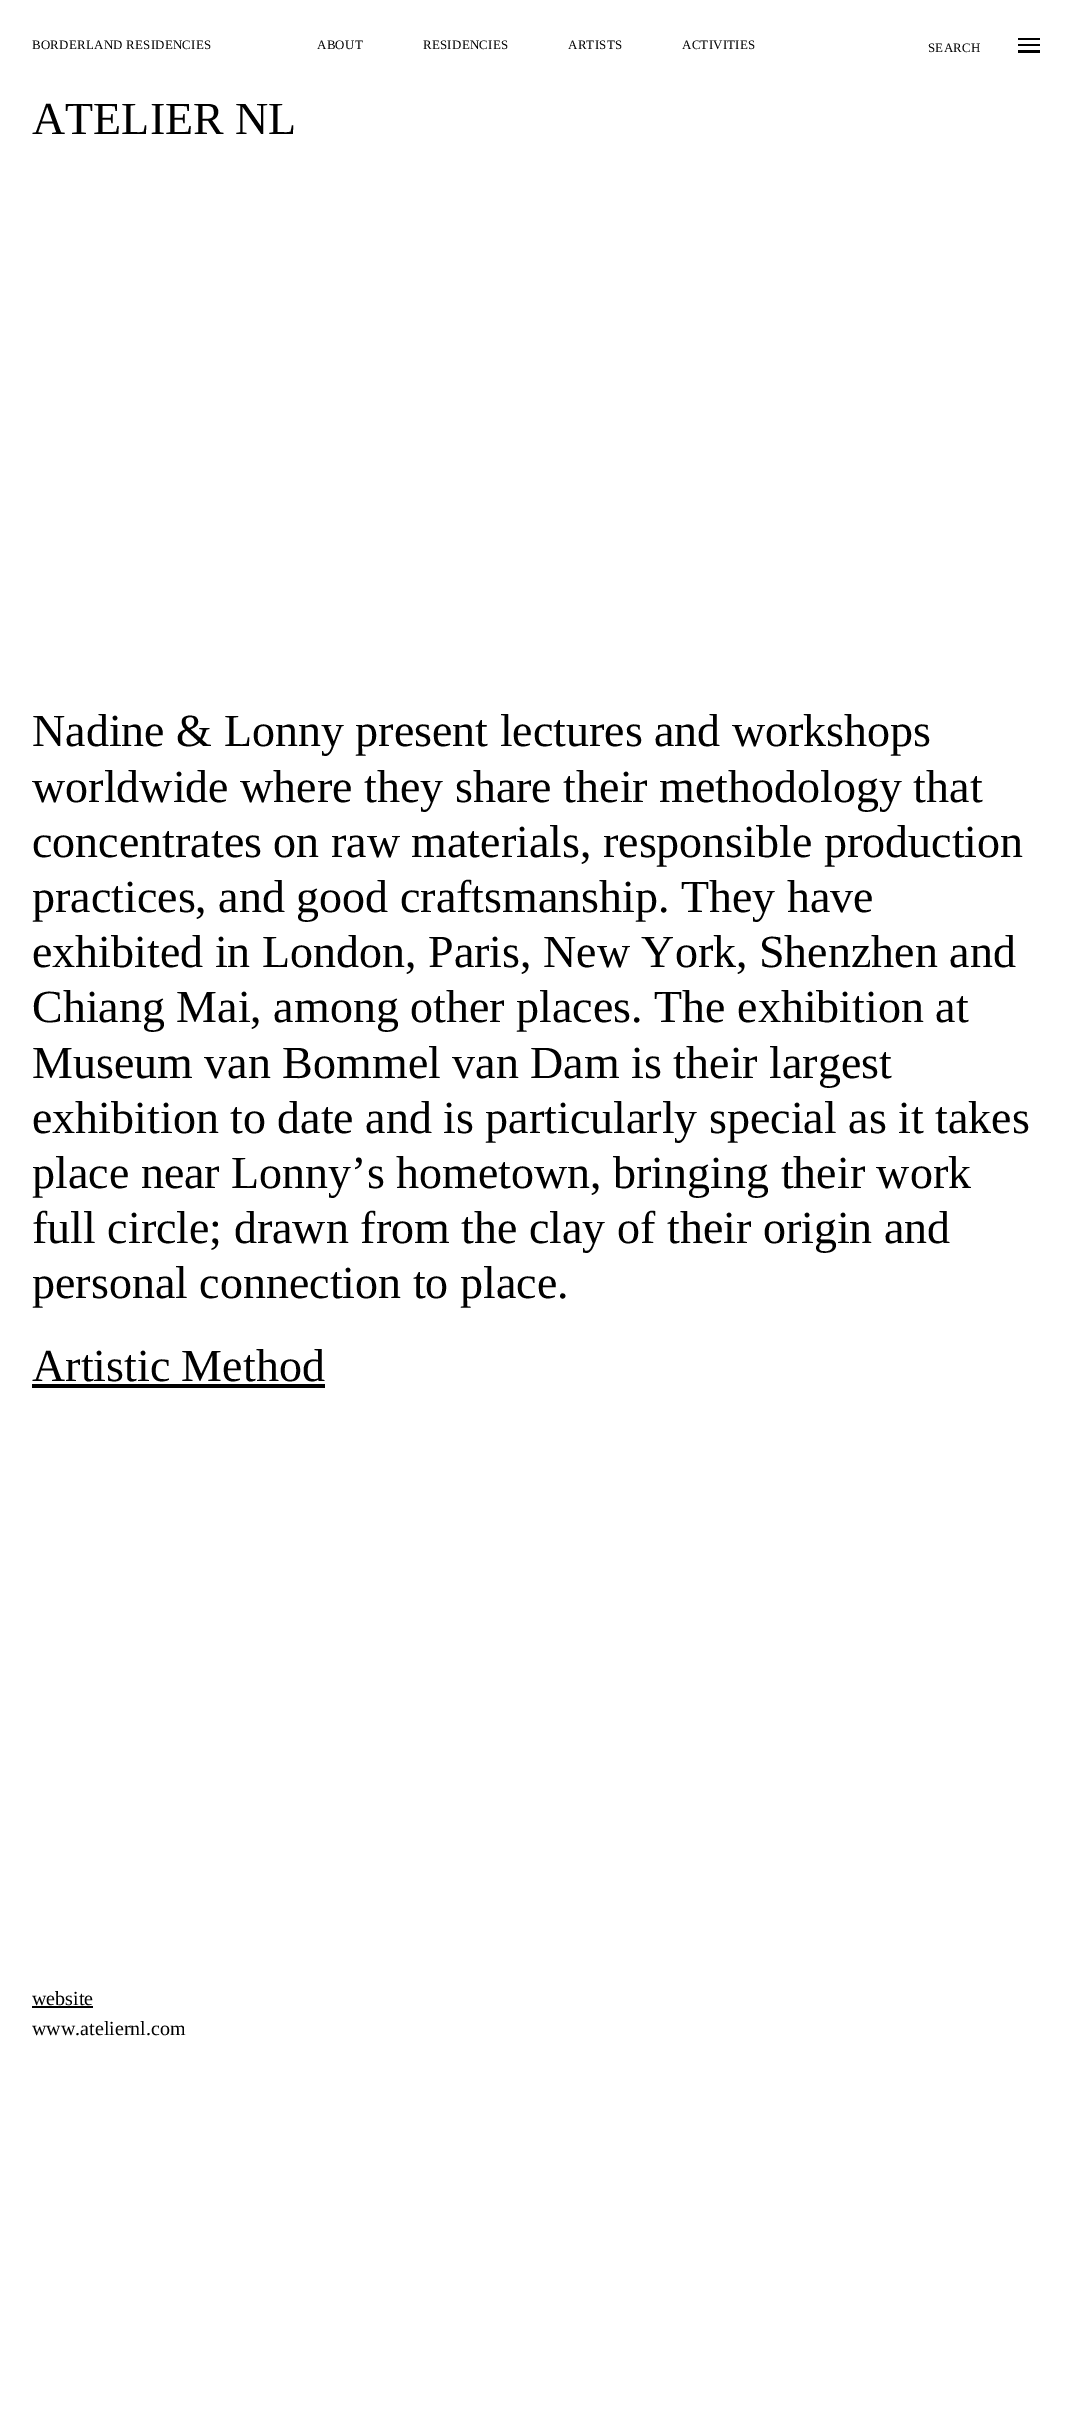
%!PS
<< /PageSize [1072 2422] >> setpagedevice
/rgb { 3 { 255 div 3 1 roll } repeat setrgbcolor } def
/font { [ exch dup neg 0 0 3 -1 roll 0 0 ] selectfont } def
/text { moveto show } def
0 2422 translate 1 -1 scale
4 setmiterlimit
255 255 255 rgb
0 0 1072 2422 rectfill
0 0 0 rgb
1018 44 22 2 rectfill
1018 38 22 2 rectfill
1018 50 22 3 rectfill
32 1384 293 4 rectfill
32 2006 61 2 rectfill
/LiberationSerif-Regular 12.9 font
32 49 moveto 0.25 0 (BORDERLAND RESIDENCIES) ashow
317 49 moveto 0.25 0 (ABOUT) ashow
423 49 moveto 0.25 0 (RESIDENCIES) ashow
568 49 moveto 0.25 0 (ARTISTS) ashow
682 49 moveto 0.25 0 (ACTIVITIES) ashow
928 52 moveto 0.25 0 (SEARCH) ashow
/LiberationSerif-Regular 46 font
(ATELIER NL) 32 134 text
(Nadine & Lonny present lectures and workshops) 32 746 text
(worldwide where they share their methodology that) 32 802 text
(concentrates on raw materials, responsible production) 32 857 text
(practices, and good craftsmanship. They have) 32 912 text
(exhibited in London, Paris, New York, Shenzhen and) 32 967 text
(Chiang Mai, among other places. The exhibition at) 32 1022 text
(Museum van Bommel van Dam is their largest) 32 1078 text
(exhibition to date and is particularly special as it takes) 32 1133 text
(place near Lonny’s hometown, bringing their work) 32 1188 text
(full circle; drawn from the clay of their origin and) 32 1243 text
(personal connection to place.) 32 1298 text
(Artistic Method) 32 1381 text
/LiberationSerif-Regular 20 font
(website) 32 2005 text
(www.ateliernl.com) 32 2035 text
showpage
